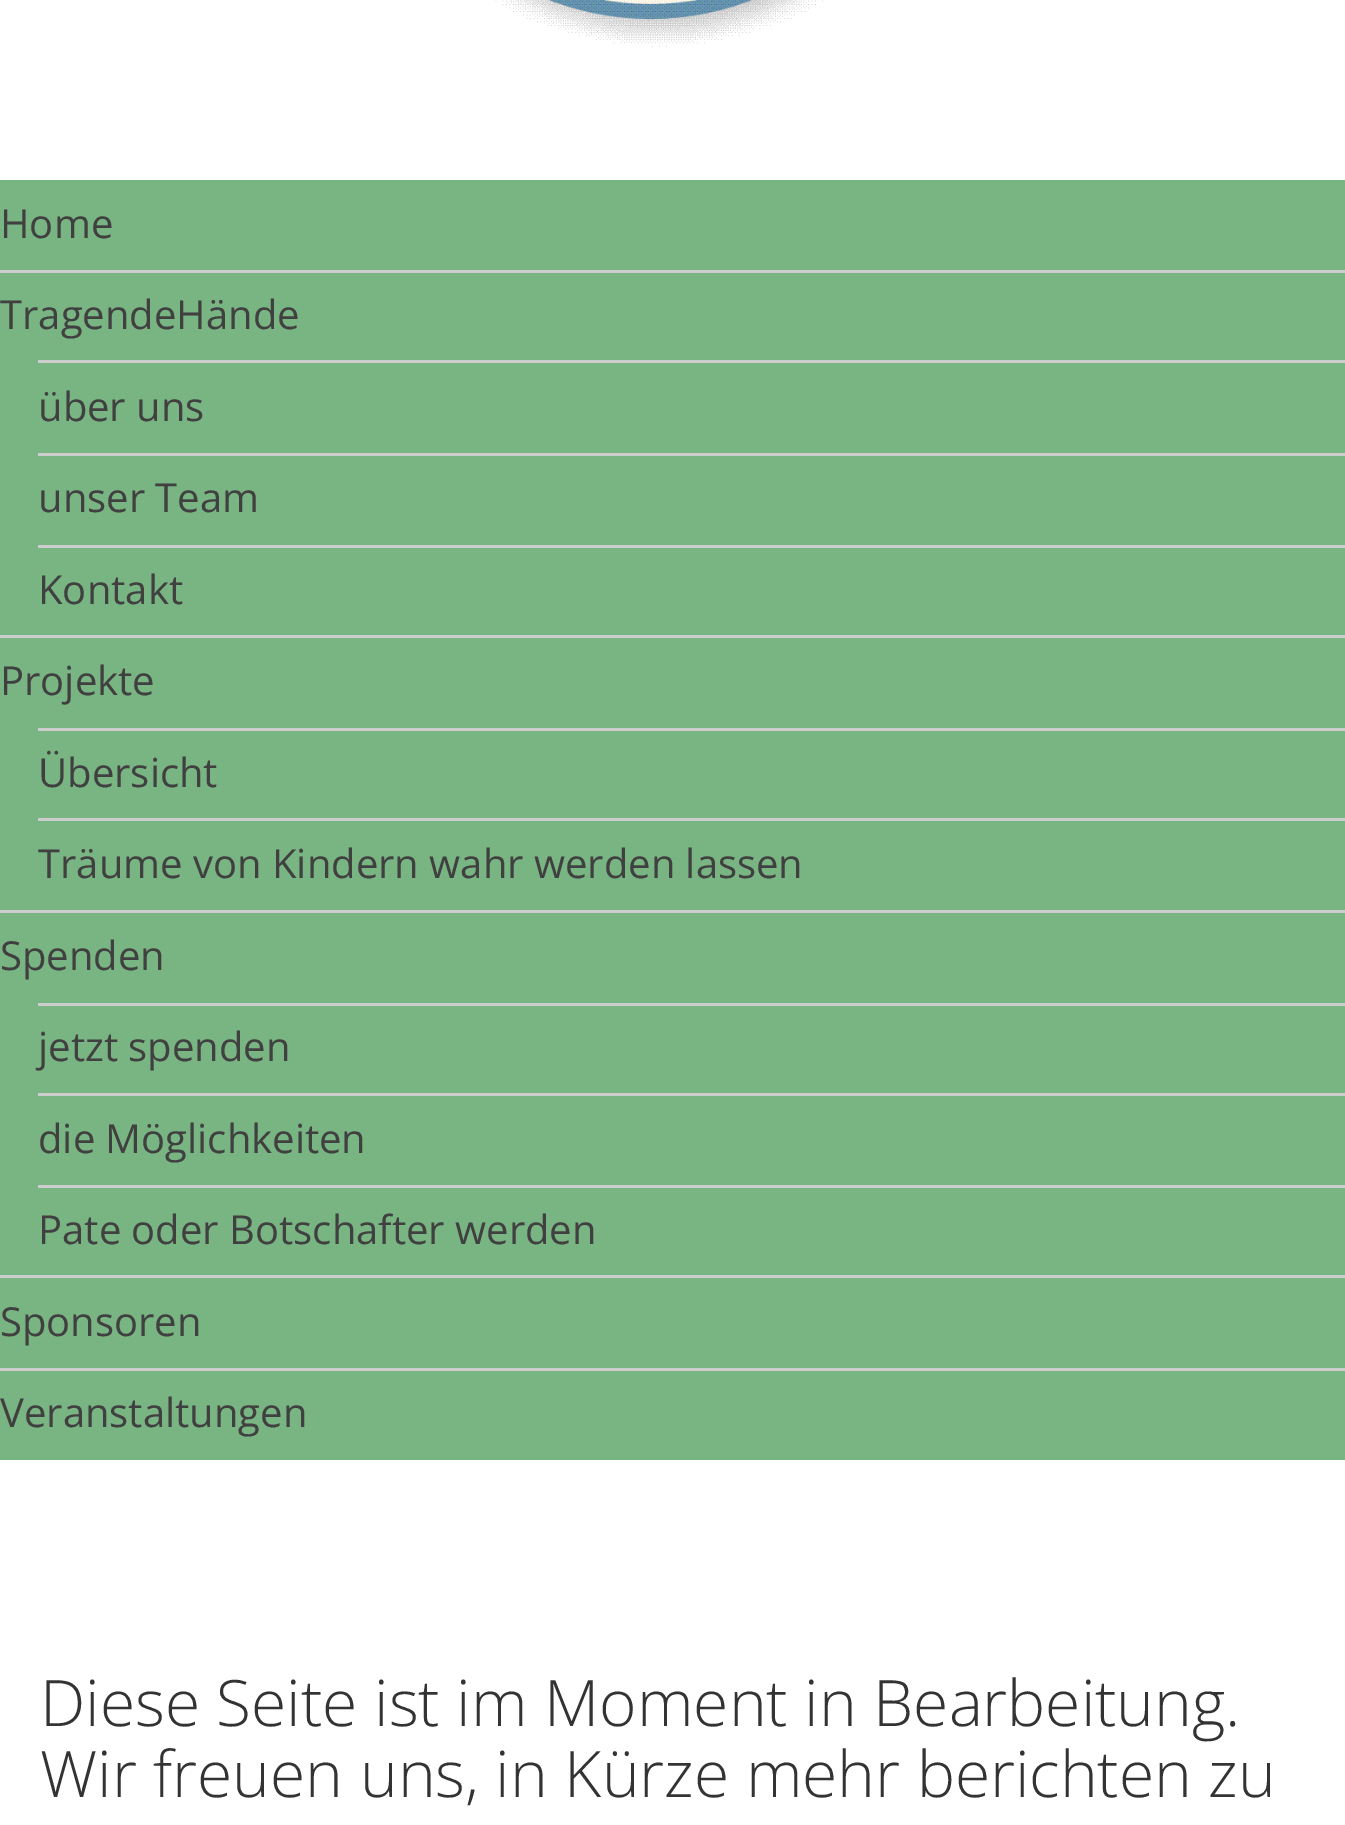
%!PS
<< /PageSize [1345 1825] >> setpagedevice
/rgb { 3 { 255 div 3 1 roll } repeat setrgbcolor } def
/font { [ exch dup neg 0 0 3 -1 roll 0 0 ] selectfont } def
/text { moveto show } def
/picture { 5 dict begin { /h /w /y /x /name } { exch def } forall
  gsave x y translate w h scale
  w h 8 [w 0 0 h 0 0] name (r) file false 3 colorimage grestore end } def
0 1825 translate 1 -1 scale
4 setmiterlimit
255 255 255 rgb
0 0 1345 1825 rectfill
(img_01.rgb) 495 0 328 47 picture
121 181 131 rgb
0 180 1345 1280 rectfill
205 205 205 rgb
0 270 1345 3 rectfill
0 635 1345 3 rectfill
38 360 1307 3 rectfill
38 453 1307 3 rectfill
38 545 1307 3 rectfill
0 910 1345 3 rectfill
38 728 1307 3 rectfill
38 818 1307 3 rectfill
0 1275 1345 3 rectfill
38 1003 1307 3 rectfill
38 1093 1307 3 rectfill
38 1185 1307 3 rectfill
0 1368 1345 3 rectfill
/OpenSans-Regular 40 font
64 64 64 rgb
(Home) 0 238 text
(TragendeHände) 0 329 text
(über uns) 38 421 text
(unser Team) 38 512 text
(Kontakt) 38 604 text
(Projekte) 0 695 text
(Übersicht) 38 787 text
(Träume von Kindern wahr werden lassen) 38 878 text
(Spenden) 0 970 text
(jetzt spenden) 38 1061 text
(die Möglichkeiten) 38 1153 text
(Pate oder Botschafter werden) 38 1244 text
(Sponsoren) 0 1336 text
(Veranstaltungen) 0 1427 text
/OpenSans-Light 64 font
51 51 51 rgb
(Diese Seite ist im Moment in Bearbeitung.) 40 1726 text
(Wir freuen uns, in Kürze mehr berichten zu) 40 1797 text
showpage
